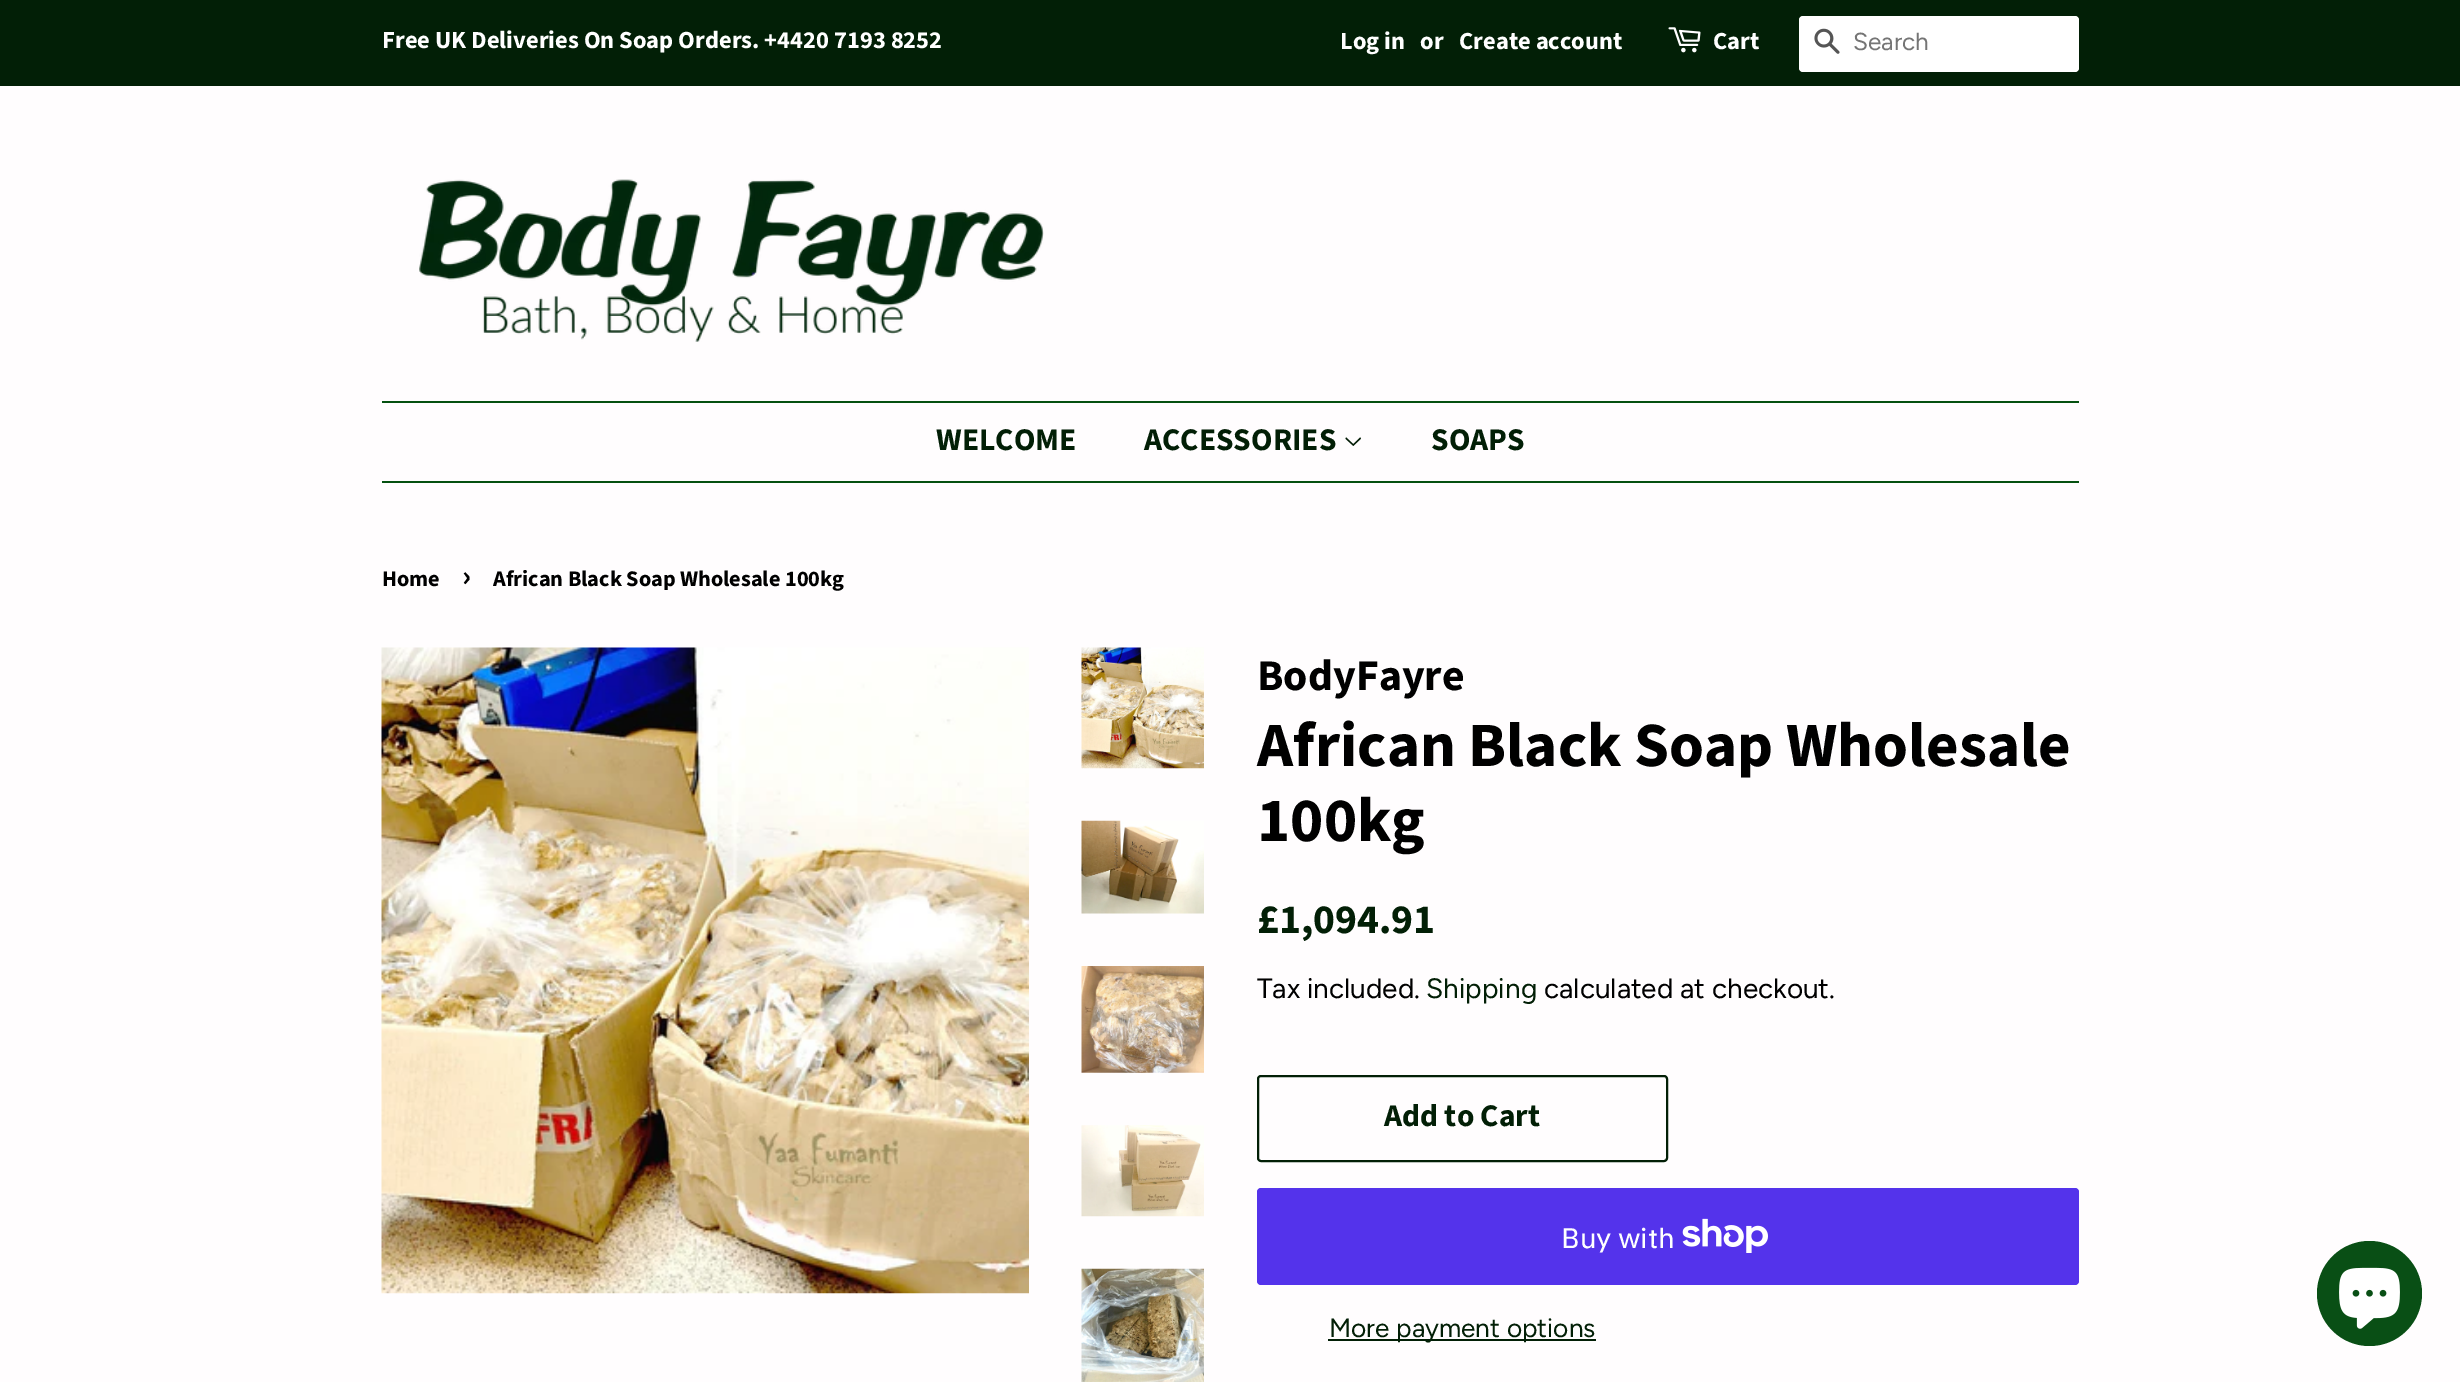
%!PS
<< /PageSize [2460 1382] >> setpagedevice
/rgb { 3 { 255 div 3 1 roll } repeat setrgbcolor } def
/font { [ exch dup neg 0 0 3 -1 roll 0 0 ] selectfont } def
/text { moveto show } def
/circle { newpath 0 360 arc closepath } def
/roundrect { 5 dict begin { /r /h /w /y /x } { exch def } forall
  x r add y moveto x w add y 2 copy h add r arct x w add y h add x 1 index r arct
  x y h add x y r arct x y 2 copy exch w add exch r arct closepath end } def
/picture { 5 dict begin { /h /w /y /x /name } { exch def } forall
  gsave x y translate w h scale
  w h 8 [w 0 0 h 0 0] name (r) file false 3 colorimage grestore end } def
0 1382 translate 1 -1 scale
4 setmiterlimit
255 253 254 rgb
0 0 2460 1382 rectfill
2 31 6 rgb
0 0 2460 86 rectfill
(img_01.rgb) 1668 27 33 26 picture
255 255 255 rgb
1799 16 280 56 4 roundrect fill
(img_02.rgb) 1814 28 26 26 picture
(img_03.rgb) 419 179 625 163 picture
5 81 16 rgb
382 401 1697 2 rectfill
382 481 1697 2 rectfill
(img_04.rgb) 1345 437 16 9 picture
(img_05.rgb) 381 647 648 647 picture
(img_06.rgb) 1081 647 123 122 picture
(img_07.rgb) 1081 820 123 94 picture
(img_08.rgb) 1081 966 123 107 picture
(img_09.rgb) 1081 1125 123 92 picture
(img_10.rgb) 1081 1268 123 114 picture
2 31 6 rgb
2 setlinewidth
1258 1076 409 85 3 roundrect stroke
84 51 235 rgb
1257 1188 822 97 4 roundrect fill
(img_11.rgb) 1682 1218 86 35 picture
2 31 6 rgb
1328 1339 268 2 rectfill
9 79 21 rgb
2369.5 1293.5 52.5 circle fill
(img_12.rgb) 2339 1267 61 62 picture
/SourceSansPro-Bold 24.5 font
255 255 255 rgb
(Free UK Deliveries On Soap Orders. +4420 7193 8252) 382 48 text
(Log in) 1340 49 text
(or) 1420 49 text
(Create account) 1459 49 text
(Cart) 1713 49 text
/Figtree-Regular 24.5 font
117 117 117 rgb
(Search) 1853 50 text
/SourceSansPro-Bold 31.5 font
2 31 6 rgb
(WELCOME) 936 450 text
(ACCESSORIES) 1144 450 text
(SOAPS) 1431 450 text
/SourceSansPro-Bold 22.25 font
0 0 0 rgb
(Home) 382 586 text
/SourceSansPro-Bold 31 font
(›) 462 586 text
/SourceSansPro-Bold 22.25 font
(African Black Soap Wholesale 100kg) 493 586 text
/SourceSansPro-Bold 43.75 font
(BodyFayre) 1257 690 text
/SourceSansPro-Bold 63 font
(African Black Soap Wholesale) 1257 766 text
(100kg) 1257 841 text
/SourceSansPro-Bold 41.5 font
2 31 6 rgb
(£1,094.91) 1257 933 text
/Figtree-Regular 28 font
0 0 0 rgb
(Tax included.) 1257 998 text
2 31 6 rgb
(Shipping) 1426 998 text
0 0 0 rgb
(calculated at checkout.) 1544 998 text
/SourceSansPro-Bold 31.5 font
2 31 6 rgb
(Add to Cart) 1384 1126 text
/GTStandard-Regular 28 font
255 255 255 rgb
(Buy with) 1561 1248 text
/Figtree-Regular 26.25 font
2 31 6 rgb
(More payment options) 1329 1337 text
showpage
